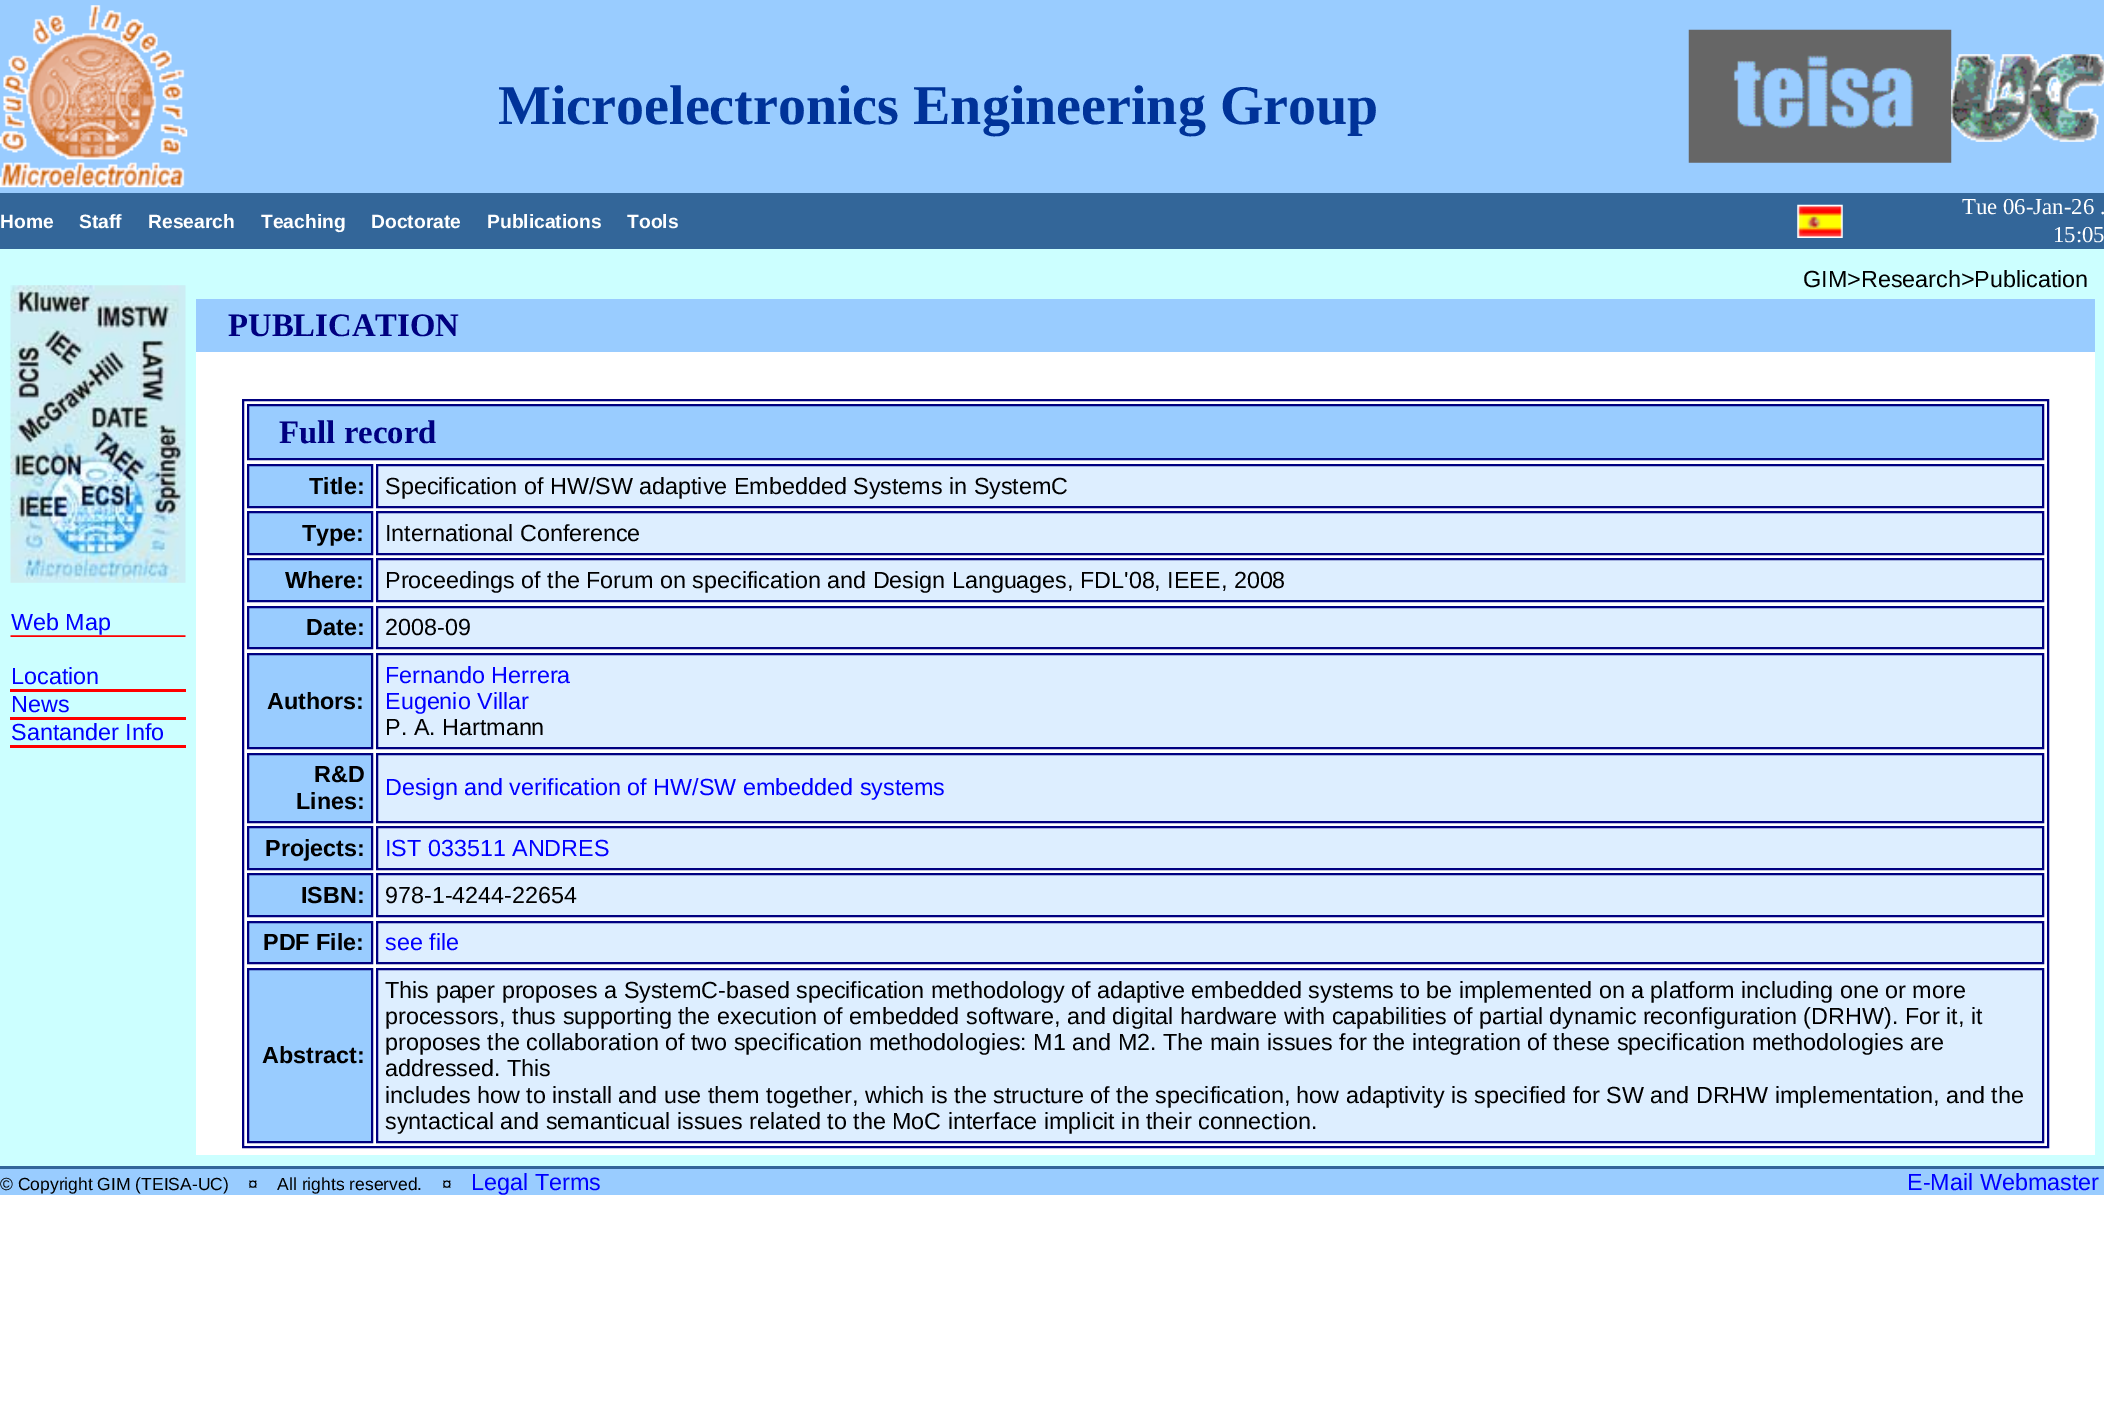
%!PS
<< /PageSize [2104 1424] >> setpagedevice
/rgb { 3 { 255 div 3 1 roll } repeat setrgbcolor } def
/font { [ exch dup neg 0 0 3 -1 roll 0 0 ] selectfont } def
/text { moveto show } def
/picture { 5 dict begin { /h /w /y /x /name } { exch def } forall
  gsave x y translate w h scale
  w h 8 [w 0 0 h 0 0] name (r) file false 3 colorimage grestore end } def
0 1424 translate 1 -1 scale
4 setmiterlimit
255 255 255 rgb
0 0 2104 1424 rectfill
153 204 255 rgb
0 0 2104 193 rectfill
(img_01.rgb) 0 5 188 183 picture
(img_02.rgb) 1688 29 264 134 picture
(img_03.rgb) 1951 54 153 88 picture
51 102 153 rgb
0 193 2104 56 rectfill
(img_04.rgb) 1797 204 46 34 picture
204 255 255 rgb
0 249 2104 917 rectfill
(img_05.rgb) 10 285 176 298 picture
(img_06.rgb) 10 635 176 2 picture
255 0 0 rgb
10 689 176 3 rectfill
10 717 176 3 rectfill
10 745 176 3 rectfill
255 255 255 rgb
196 352 1899 803 rectfill
153 204 255 rgb
196 299 1899 53 rectfill
0 0 128 rgb
2 setlinewidth
243 400 1805 747 rectstroke
153 204 255 rgb
248 405 moveto 1795 0 rlineto 0 54 rlineto -1795 0 rlineto closepath gsave fill grestore
0 0 128 rgb
stroke
153 204 255 rgb
248 465 moveto 124 0 rlineto 0 42 rlineto -124 0 rlineto closepath gsave fill grestore
0 0 128 rgb
stroke
221 238 255 rgb
377 465 moveto 1666 0 rlineto 0 42 rlineto -1666 0 rlineto closepath gsave fill grestore
0 0 128 rgb
stroke
153 204 255 rgb
248 512 moveto 124 0 rlineto 0 42 rlineto -124 0 rlineto closepath gsave fill grestore
0 0 128 rgb
stroke
221 238 255 rgb
377 512 moveto 1666 0 rlineto 0 42 rlineto -1666 0 rlineto closepath gsave fill grestore
0 0 128 rgb
stroke
153 204 255 rgb
248 559 moveto 124 0 rlineto 0 42 rlineto -124 0 rlineto closepath gsave fill grestore
0 0 128 rgb
stroke
221 238 255 rgb
377 559 moveto 1666 0 rlineto 0 42 rlineto -1666 0 rlineto closepath gsave fill grestore
0 0 128 rgb
stroke
153 204 255 rgb
248 607 moveto 124 0 rlineto 0 41 rlineto -124 0 rlineto closepath gsave fill grestore
0 0 128 rgb
stroke
221 238 255 rgb
377 607 moveto 1666 0 rlineto 0 41 rlineto -1666 0 rlineto closepath gsave fill grestore
0 0 128 rgb
stroke
153 204 255 rgb
248 654 moveto 124 0 rlineto 0 94 rlineto -124 0 rlineto closepath gsave fill grestore
0 0 128 rgb
stroke
221 238 255 rgb
377 654 moveto 1666 0 rlineto 0 94 rlineto -1666 0 rlineto closepath gsave fill grestore
0 0 128 rgb
stroke
153 204 255 rgb
248 754 moveto 124 0 rlineto 0 68 rlineto -124 0 rlineto closepath gsave fill grestore
0 0 128 rgb
stroke
221 238 255 rgb
377 754 moveto 1666 0 rlineto 0 68 rlineto -1666 0 rlineto closepath gsave fill grestore
0 0 128 rgb
stroke
153 204 255 rgb
248 827 moveto 124 0 rlineto 0 42 rlineto -124 0 rlineto closepath gsave fill grestore
0 0 128 rgb
stroke
221 238 255 rgb
377 827 moveto 1666 0 rlineto 0 42 rlineto -1666 0 rlineto closepath gsave fill grestore
0 0 128 rgb
stroke
153 204 255 rgb
248 874 moveto 124 0 rlineto 0 42 rlineto -124 0 rlineto closepath gsave fill grestore
0 0 128 rgb
stroke
221 238 255 rgb
377 874 moveto 1666 0 rlineto 0 42 rlineto -1666 0 rlineto closepath gsave fill grestore
0 0 128 rgb
stroke
153 204 255 rgb
248 922 moveto 124 0 rlineto 0 41 rlineto -124 0 rlineto closepath gsave fill grestore
0 0 128 rgb
stroke
221 238 255 rgb
377 922 moveto 1666 0 rlineto 0 41 rlineto -1666 0 rlineto closepath gsave fill grestore
0 0 128 rgb
stroke
153 204 255 rgb
248 969 moveto 124 0 rlineto 0 173 rlineto -124 0 rlineto closepath gsave fill grestore
0 0 128 rgb
stroke
221 238 255 rgb
377 969 moveto 1666 0 rlineto 0 173 rlineto -1666 0 rlineto closepath gsave fill grestore
0 0 128 rgb
stroke
51 102 153 rgb
0 1166 2104 3 rectfill
153 204 255 rgb
0 1169 2104 26 rectfill
/LiberationSerif-Bold 56 font
0 51 153 rgb
(Microelectronics Engineering Group) 498 124 text
/LiberationSans-Bold 19.25 font
255 255 255 rgb
(Home) 0 228 text
(Staff) 79 228 text
(Research) 148 228 text
(Teaching) 261 228 text
(Doctorate) 371 228 text
(Publications) 487 228 text
(Tools) 627 228 text
/LiberationSerif-Regular 22.75 font
(Tue 06-Jan-26 .) 1962 214 text
(15:05) 2053 242 text
/LiberationSans-Regular 23.33 font
0 0 255 rgb
(Web Map) 11 630 text
(Location) 11 684 text
(News) 11 712 text
(Santander Info) 11 740 text
0 0 0 rgb
(GIM>Research>Publication) 1803 287 text
/LiberationSerif-Bold 32.75 font
0 0 128 rgb
(PUBLICATION) 228 336 text
(Full record) 279 443 text
/LiberationSans-Bold 23.33 font
0 0 0 rgb
(Title:) 309 494 text
/LiberationSans-Regular 23.33 font
(Specification of HW/SW adaptive Embedded Systems in SystemC) 385 494 text
/LiberationSans-Bold 23.33 font
(Type:) 302 541 text
/LiberationSans-Regular 23.33 font
(International Conference) 385 541 text
/LiberationSans-Bold 23.33 font
(Where:) 285 588 text
/LiberationSans-Regular 23.33 font
(Proceedings of the Forum on specification and Design Languages, FDL'08, IEEE, 2008) 385 588 text
/LiberationSans-Bold 23.33 font
(Date:) 306 635 text
/LiberationSans-Regular 23.33 font
(2008-09) 385 635 text
/LiberationSans-Bold 23.33 font
(Authors:) 267 709 text
/LiberationSans-Regular 23.33 font
0 0 255 rgb
(Fernando Herrera) 385 683 text
(Eugenio Villar) 385 709 text
0 0 0 rgb
(P. A. Hartmann) 385 735 text
/LiberationSans-Bold 23.33 font
(R&D) 314 782 text
(Lines:) 296 809 text
/LiberationSans-Regular 23.33 font
0 0 255 rgb
(Design and verification of HW/SW embedded systems) 385 795 text
/LiberationSans-Bold 23.33 font
0 0 0 rgb
(Projects:) 265 856 text
/LiberationSans-Regular 23.33 font
0 0 255 rgb
(IST 033511 ANDRES) 385 856 text
/LiberationSans-Bold 23.33 font
0 0 0 rgb
(ISBN:) 301 903 text
/LiberationSans-Regular 23.33 font
(978-1-4244-22654) 385 903 text
/LiberationSans-Bold 23.33 font
(PDF File:) 263 950 text
/LiberationSans-Regular 23.33 font
0 0 255 rgb
(see file) 385 950 text
/LiberationSans-Bold 23.33 font
0 0 0 rgb
(Abstract:) 262 1063 text
/LiberationSans-Regular 23.33 font
(This paper proposes a SystemC-based specification methodology of adaptive embedded systems to be implemented on a platform including one or more) 385 998 text
(processors, thus supporting the execution of embedded software, and digital hardware with capabilities of partial dynamic reconfiguration \(DRHW\). For it, it) 385 1024 text
(proposes the collaboration of two specification methodologies: M1 and M2. The main issues for the integration of these specification methodologies are) 385 1050 text
(addressed. This) 385 1076 text
(includes how to install and use them together, which is the structure of the specification, how adaptivity is specified for SW and DRHW implementation, and the) 385 1103 text
(syntactical and semanticual issues related to the MoC interface implicit in their connection.) 385 1129 text
/LiberationSans-Regular 17.5 font
(© Copyright GIM \(TEISA-UC\)    ¤    All rights reserved.    ¤) 0 1190 text
/LiberationSans-Regular 23.33 font
0 0 255 rgb
(Legal Terms) 471 1190 text
(E-Mail Webmaster) 1907 1190 text
showpage
